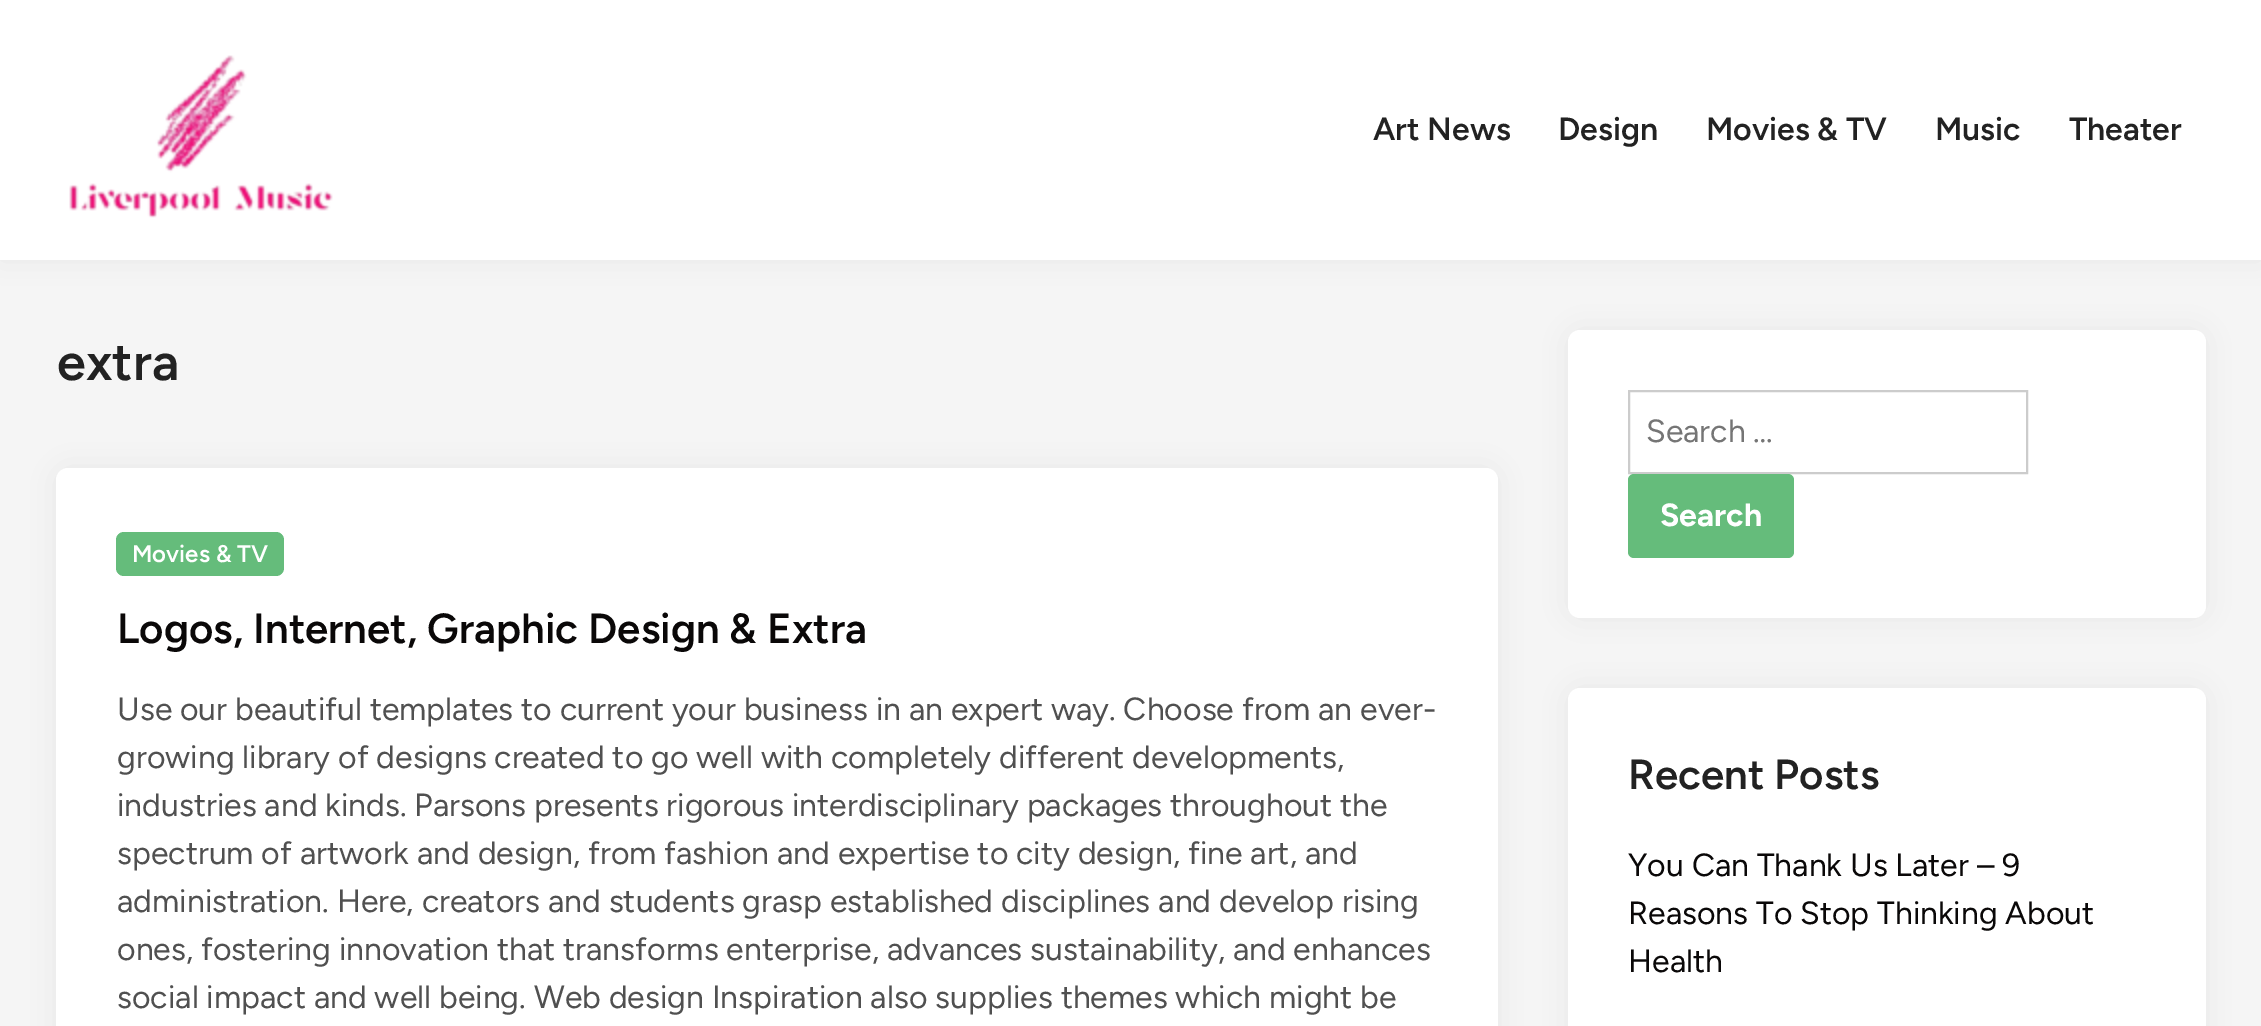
%!PS
<< /PageSize [2261 1026] /PageUsesTransparency true >> setpagedevice
/rgb { 3 { 255 div 3 1 roll } repeat setrgbcolor } def
/font { [ exch dup neg 0 0 3 -1 roll 0 0 ] selectfont } def
/text { moveto show } def
/alpha { dup .setfillconstantalpha .setstrokeconstantalpha } def
/roundrect { 5 dict begin { /r /h /w /y /x } { exch def } forall
  x r add y moveto x w add y 2 copy h add r arct x w add y h add x 1 index r arct
  x y h add x y r arct x y 2 copy exch w add exch r arct closepath end } def
/shadow { 12 dict begin { /a /b /q /h /w /y /x } { exch def } forall gsave /was 0 def
  9 -2 -9 { dup b mul 4 div /e exch def 1 sub .425 mul 2.718 exch exp 1 add a .99 .min exch div /now exch def
    1 1 now sub 1 was sub div sub alpha /was now def
    w h .min e 2 mul add 0 gt { x e sub y e sub w e 2 mul add h e 2 mul add
      q e add b .6 mul add w h .min 2 div e add .min 0 .max roundrect fill } if } for grestore end } def
/picture { 5 dict begin { /h /w /y /x /name } { exch def } forall
  gsave x y translate w h scale
  w h 8 [w 0 0 h 0 0] name (r) file false 3 colorimage grestore end } def
0 .pushpdf14devicefilter
0 1026 translate 1 -1 scale
4 setmiterlimit
245 245 245 rgb
0 0 2261 1026 rectfill
0 0 0 rgb
0 0 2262 260 0 15 0.06 shadow
255 255 255 rgb
0 0 2261 260 rectfill
(img_01.rgb) 69 55 264 163 picture
0 0 0 rgb
56 468 1442 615 12 15 0.06 shadow
255 255 255 rgb
56 468 1442 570 12 roundrect fill
101 188 123 rgb
116 532 168 44 8 roundrect fill
0 0 0 rgb
1568 330 638 288 12 15 0.06 shadow
255 255 255 rgb
1568 330 638 288 12 roundrect fill
204 204 204 rgb
2 setlinewidth
1629 391 398 82 rectstroke
101 188 123 rgb
1628 474 166 84 6 roundrect fill
0 0 0 rgb
1568 688 638 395 12 15 0.06 shadow
255 255 255 rgb
1568 688 638 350 12 roundrect fill
/Figtree-SemiBold 32 font
34 34 34 rgb
(Art News) 1373 140 text
(Design) 1558 140 text
(Movies & TV) 1706 140 text
(Music) 1935 140 text
(Theater) 2069 140 text
/Figtree-SemiBold 52 font
(extra) 57 380 text
/Figtree-SemiBold 24 font
255 255 255 rgb
(Movies & TV) 132 562 text
/Figtree-SemiBold 42 font
10 8 8 rgb
(Logos, Internet, Graphic Design & Extra) 117 643 text
/Figtree-Regular 32 font
80 80 80 rgb
(Use our beautiful templates to current your business in an expert way. Choose from an ever-) 117 720 text
(growing library of designs created to go well with completely different developments,) 117 768 text
(industries and kinds. Parsons presents rigorous interdisciplinary packages throughout the) 117 816 text
(spectrum of artwork and design, from fashion and expertise to city design, fine art, and) 117 864 text
(administration. Here, creators and students grasp established disciplines and develop rising) 117 912 text
(ones, fostering innovation that transforms enterprise, advances sustainability, and enhances) 117 960 text
(social impact and well being. Web design Inspiration also supplies themes which might be) 117 1008 text
117 117 117 rgb
(Search …) 1646 442 text
/Figtree-Bold 32 font
255 255 255 rgb
(Search) 1660 526 text
/Figtree-SemiBold 42 font
34 34 34 rgb
(Recent Posts) 1628 789 text
/Figtree-Regular 32 font
10 8 8 rgb
(You Can Thank Us Later – 9) 1628 876 text
(Reasons To Stop Thinking About) 1628 924 text
(Health) 1628 972 text
.poppdf14devicefilter showpage
